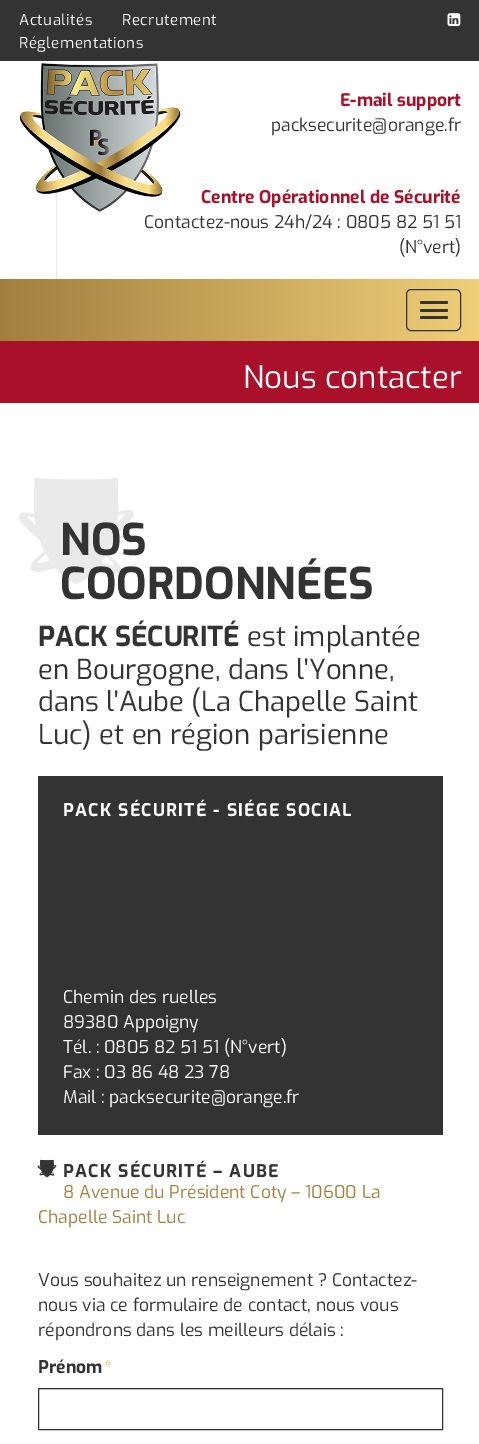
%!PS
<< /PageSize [479 1444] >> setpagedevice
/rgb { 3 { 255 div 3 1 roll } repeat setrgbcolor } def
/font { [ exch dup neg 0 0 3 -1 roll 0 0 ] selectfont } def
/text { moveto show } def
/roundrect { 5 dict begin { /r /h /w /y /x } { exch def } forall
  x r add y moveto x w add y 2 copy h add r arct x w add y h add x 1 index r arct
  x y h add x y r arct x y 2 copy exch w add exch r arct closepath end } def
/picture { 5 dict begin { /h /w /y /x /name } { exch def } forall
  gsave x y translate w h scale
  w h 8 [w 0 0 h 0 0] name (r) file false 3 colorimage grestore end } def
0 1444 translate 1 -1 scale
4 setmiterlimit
255 255 255 rgb
0 0 479 1444 rectfill
51 51 51 rgb
0 0 479 61 rectfill
(img_01.rgb) 447 13 14 14 picture
234 234 234 rgb
56 179 1 100 rectfill
(img_02.rgb) 20 63 161 149 picture
gsave 0 279 moveto 479 0 rlineto 0 62 rlineto -479 0 rlineto closepath clip newpath
<< /ShadingType 2 /ColorSpace /DeviceRGB /Coords [0 310 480 310] /Extend [true true] /Function << /FunctionType 2 /Domain [0 1] /C0 [0.631 0.498 0.247] /C1 [0.937 0.812 0.471] /N 1 >> >> shfill grestore
51 51 51 rgb
406.5 289.5 54 41 4.5 roundrect stroke
420 301 28 3 1.5 roundrect fill
420 309 28 3 1.5 roundrect fill
420 316 28 3 1.5 roundrect fill
170 16 42 rgb
0 341 479 62 rectfill
(img_03.rgb) 19 478 115 106 picture
51 51 51 rgb
38 776 405 359 rectfill
(img_04.rgb) 37 1159 20 19 picture
236 236 236 rgb
39 1389 402 1 rectfill
51 51 51 rgb
38.5 1388.5 404 41 rectstroke
/Exo-Regular 15 font
255 255 255 rgb
19 25 moveto 0.5 0 (Actualités) ashow
122 25 moveto 0.5 0 (Recrutement) ashow
19 48 moveto 0.5 0 (Réglementations) ashow
/Exo-Bold 17.5 font
170 16 42 rgb
(E-mail support) 340 106 text
/Exo-Regular 17.5 font
51 51 51 rgb
(packsecurite@orange.fr) 271 131 text
/Exo-Bold 17.5 font
170 16 42 rgb
(Centre Opérationnel de Sécurité) 201 203 text
/Exo-Regular 17.5 font
51 51 51 rgb
(Contactez-nous 24h/24 : 0805 82 51 51) 144 228 text
(\(N°vert\)) 399 253 text
/Exo-Regular 31.25 font
255 255 255 rgb
(Nous contacter) 243 388 text
/Exo-Bold 43.75 font
51 51 51 rgb
(NOS) 60 555 text
(COORDONNÉES) 60 599 text
/Exo-Bold 27.5 font
(PACK SÉCURITÉ) 38 646 text
/Exo-Regular 27.5 font
(est implantée) 247 646 text
(en Bourgogne, dans l'Yonne,) 38 679 text
(dans l'Aube \(La Chapelle Saint) 38 711 text
(Luc\) et en région parisienne) 38 744 text
/Exo-Bold 17.5 font
255 255 255 rgb
63 816 moveto 1.25 0 (PACK SÉCURITÉ - SIÉGE SOCIAL) ashow
/Exo-Regular 17.5 font
(Chemin des ruelles) 63 1003 text
(89380 Appoigny) 63 1028 text
(Tél. : 0805 82 51 51 \(N°vert\)) 63 1053 text
(Fax : 03 86 48 23 78) 63 1078 text
(Mail : packsecurite@orange.fr) 63 1103 text
/Exo-Bold 17.5 font
51 51 51 rgb
63 1177 moveto 1.25 0 (PACK SÉCURITÉ – AUBE) ashow
/Exo-Regular 17.5 font
161 127 63 rgb
(8 Avenue du Président Coty – 10600 La) 63 1198 text
(Chapelle Saint Luc) 38 1223 text
51 51 51 rgb
(Vous souhaitez un renseignement ? Contactez-) 38 1286 text
(nous via ce formulaire de contact, nous vous) 38 1311 text
(répondrons dans les meilleurs délais :) 38 1336 text
/Exo-Bold 17.5 font
(Prénom) 38 1373 text
239 207 120 rgb
(*) 104 1373 text
showpage
